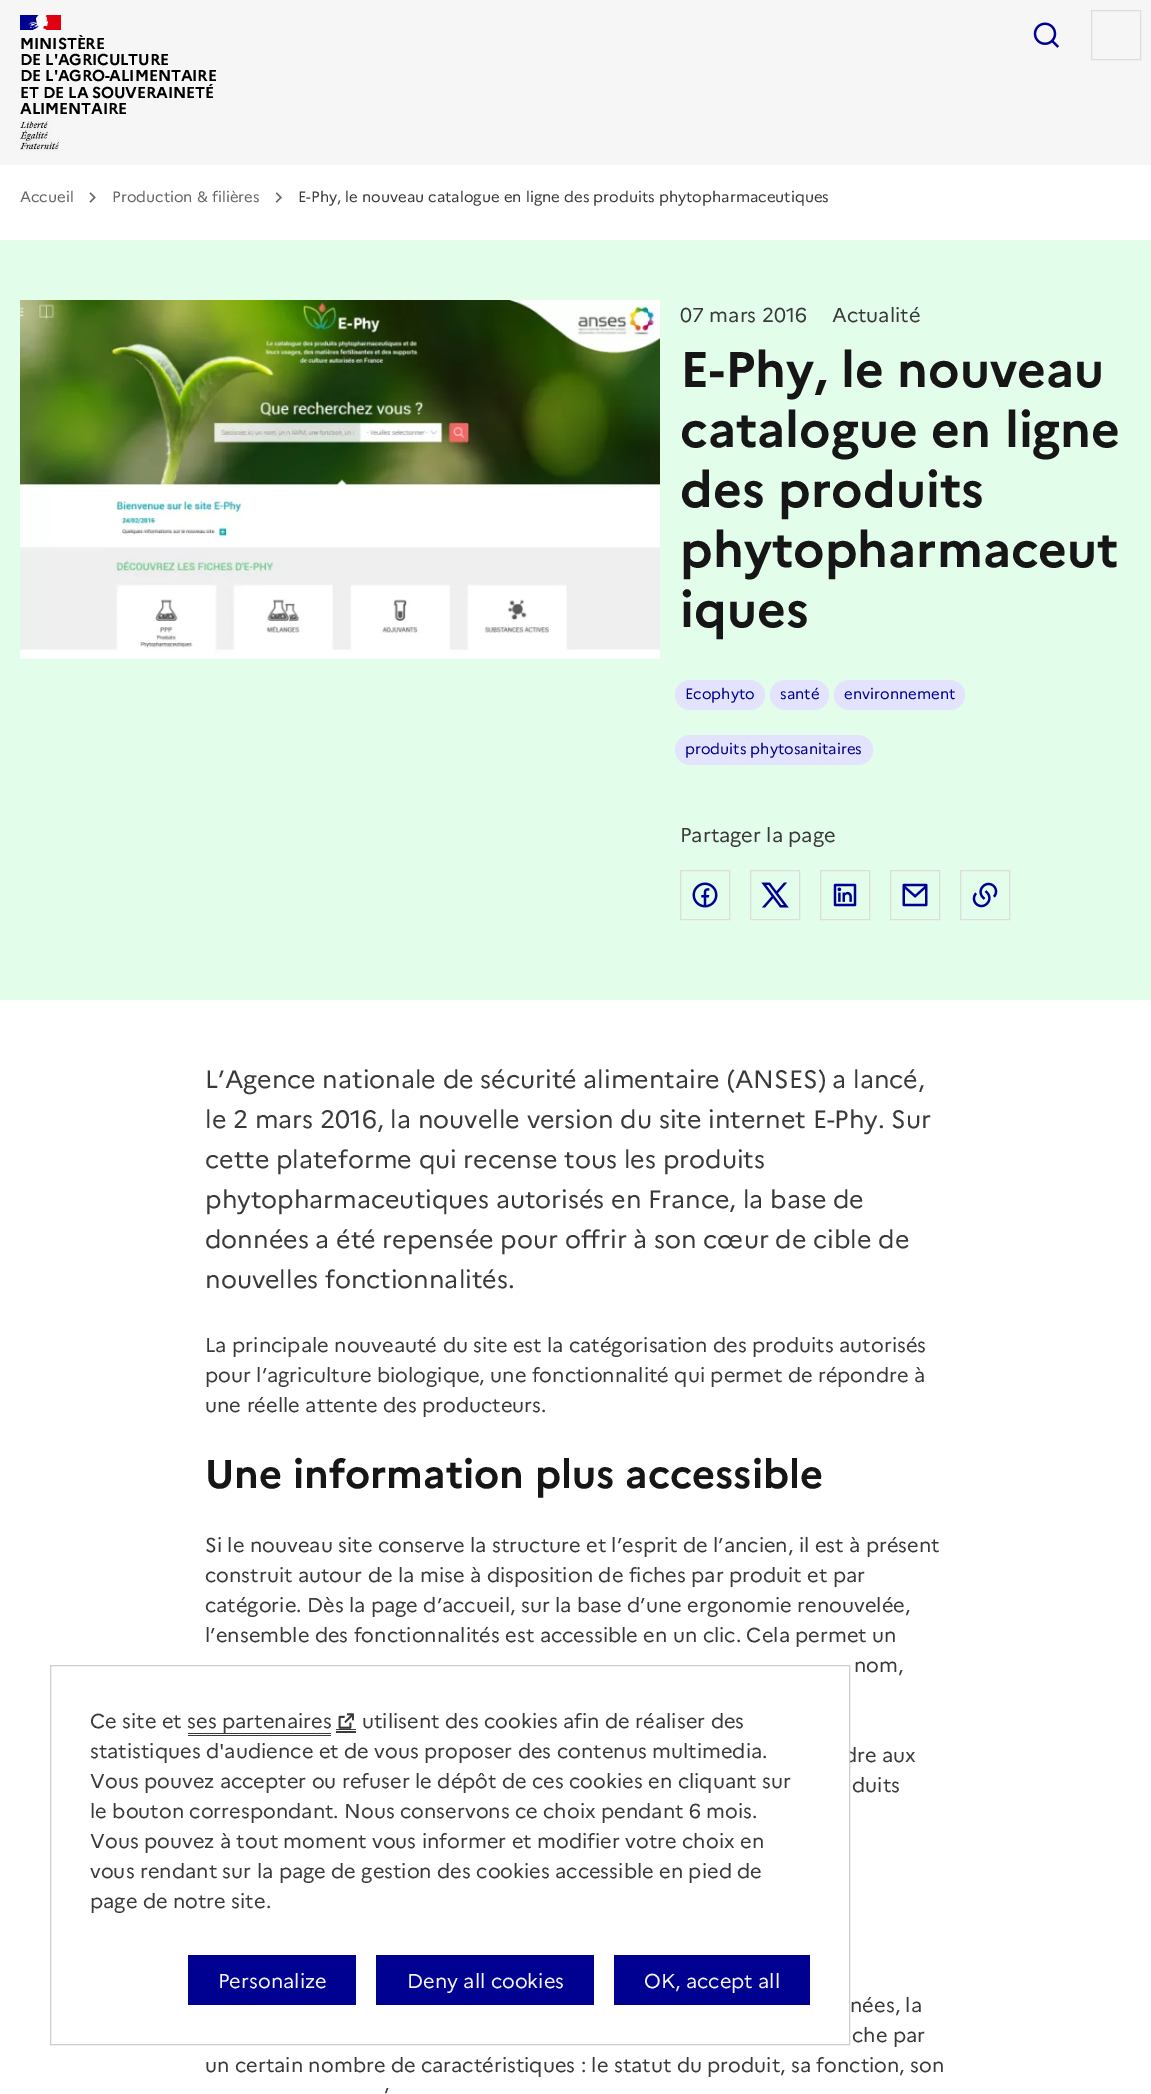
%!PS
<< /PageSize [1151 2094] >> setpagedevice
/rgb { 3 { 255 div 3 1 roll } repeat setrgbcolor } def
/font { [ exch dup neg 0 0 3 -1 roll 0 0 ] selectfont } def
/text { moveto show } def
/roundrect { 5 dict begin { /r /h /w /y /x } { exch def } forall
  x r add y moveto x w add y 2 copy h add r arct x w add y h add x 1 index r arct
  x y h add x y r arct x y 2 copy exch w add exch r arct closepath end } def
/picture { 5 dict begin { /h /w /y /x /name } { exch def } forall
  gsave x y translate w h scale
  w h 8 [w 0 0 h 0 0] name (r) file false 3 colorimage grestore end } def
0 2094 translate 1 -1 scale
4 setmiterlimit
255 255 255 rgb
0 0 1151 2094 rectfill
246 246 246 rgb
0 0 1151 165 rectfill
0 0 145 rgb
20 15 19 15 rectfill
225 0 15 rgb
43 15 18 15 rectfill
(img_01.rgb) 28 15 21 15 picture
(img_02.rgb) 20 121 39 30 picture
(img_03.rgb) 1033 22 26 26 picture
221 221 221 rgb
1091.5 10.5 49 49 rectstroke
(img_04.rgb) 89 192 7 11 picture
(img_05.rgb) 275 192 7 11 picture
227 253 235 rgb
0 240 1151 760 rectfill
(img_06.rgb) 20 300 640 359 picture
227 227 253 rgb
675 680 90 30 15 roundrect fill
770 680 59 30 15 roundrect fill
834 680 131 30 15 roundrect fill
675 735 198 30 15 roundrect fill
221 221 221 rgb
680.5 870.5 49 49 rectstroke
(img_07.rgb) 692 882 26 26 picture
750.5 870.5 49 49 rectstroke
(img_08.rgb) 761 882 28 26 picture
820.5 870.5 49 49 rectstroke
(img_09.rgb) 833 883 24 24 picture
890.5 870.5 49 49 rectstroke
(img_10.rgb) 902 883 26 24 picture
960.5 870.5 49 49 rectstroke
(img_11.rgb) 972 882 26 26 picture
/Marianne-Bold 15.75 font
0 0 0 rgb
20 49 moveto -0.2 0 (MINISTÈRE) ashow
20 65 moveto -0.2 0 (DE L'AGRICULTURE) ashow
20 81 moveto -0.2 0 (DE L'AGRO-ALIMENTAIRE) ashow
20 98 moveto -0.2 0 (ET DE LA SOUVERAINETÉ) ashow
20 114 moveto -0.2 0 (ALIMENTAIRE) ashow
/Marianne-Regular 15 font
102 102 102 rgb
(Accueil) 20 202 text
(Production & filières) 112 202 text
58 58 58 rgb
(E-Phy, le nouveau catalogue en ligne des produits phytopharmaceutiques) 298 202 text
/Marianne-Regular 20 font
(07 mars 2016) 680 322 text
(Actualité) 832 322 text
/Marianne-Bold 50 font
22 22 22 rgb
(E-Phy, le nouveau) 680 387 text
(catalogue en ligne) 680 447 text
(des produits) 680 507 text
(phytopharmaceut) 680 567 text
(iques) 680 627 text
/Marianne-Regular 15 font
0 0 145 rgb
(Ecophyto) 685 699 text
(santé) 780 699 text
(environnement) 844 699 text
(produits phytosanitaires) 685 754 text
/Marianne-Regular 20 font
58 58 58 rgb
(Partager la page) 680 842 text
/Marianne-Regular 25 font
(L’Agence nationale de sécurité alimentaire \(ANSES\) a lancé,) 205 1088 text
(le 2 mars 2016, la nouvelle version du site internet E-Phy. Sur) 205 1128 text
(cette plateforme qui recense tous les produits) 205 1168 text
(phytopharmaceutiques autorisés en France, la base de) 205 1208 text
(données a été repensée pour offrir à son cœur de cible de) 205 1248 text
(nouvelles fonctionnalités.) 205 1288 text
/Marianne-Regular 20 font
(La principale nouveauté du site est la catégorisation des produits autorisés) 205 1352 text
(pour l’agriculture biologique, une fonctionnalité qui permet de répondre à) 205 1382 text
(une réelle attente des producteurs.) 205 1412 text
/Marianne-Bold 40 font
22 22 22 rgb
(Une information plus accessible) 205 1488 text
/Marianne-Regular 20 font
58 58 58 rgb
(Si le nouveau site conserve la structure et l’esprit de l’ancien, il est à présent) 205 1552 text
(construit autour de la mise à disposition de fiches par produit et par) 205 1582 text
(catégorie. Dès la page d’accueil, sur la base d’une ergonomie renouvelée,) 205 1612 text
(l’ensemble des fonctionnalités est accessible en un clic. Cela permet un) 205 1642 text
(nom,) 854 1672 text
(dre aux) 844 1762 text
(duits) 852 1792 text
(nées, la) 850 2012 text
(che par) 852 2042 text
(un certain nombre de caractéristiques : le statut du produit, sa fonction, son) 205 2072 text
(’) 384 2102 text
255 255 255 rgb
844 1751 5 12 rectfill
206 206 206 rgb
50.5 1665.5 799 379 rectstroke
58 58 58 rgb
(Ce site et ses partenaires) 90 1728 text
(utilisent des cookies afin de réaliser des) 362 1728 text
188 1735 143 1 rectfill
188 1733 143 1 rectfill
336 1713 moveto 0 20 rlineto 20 0 rlineto 0 -2 rlineto -20 0 rlineto closepath fill
336 1729 20 1 rectfill
(img_12.rgb) 338 1713 16 16 picture
(img_13.rgb) 338 1713 16 16 picture
(statistiques d'audience et de vous proposer des contenus multimedia.) 90 1758 text
(Vous pouvez accepter ou refuser le dépôt de ces cookies en cliquant sur) 90 1788 text
(le bouton correspondant. Nous conservons ce choix pendant 6 mois.) 90 1818 text
(Vous pouvez à tout moment vous informer et modifier votre choix en) 90 1848 text
(vous rendant sur la page de gestion des cookies accessible en pied de) 90 1878 text
(page de notre site.) 90 1908 text
0 0 145 rgb
188 1955 168 50 rectfill
245 245 254 rgb
(Personalize) 218 1988 text
0 0 145 rgb
376 1955 218 50 rectfill
245 245 254 rgb
(Deny all cookies) 407 1988 text
0 0 145 rgb
614 1955 196 50 rectfill
245 245 254 rgb
(OK, accept all) 644 1988 text
showpage
